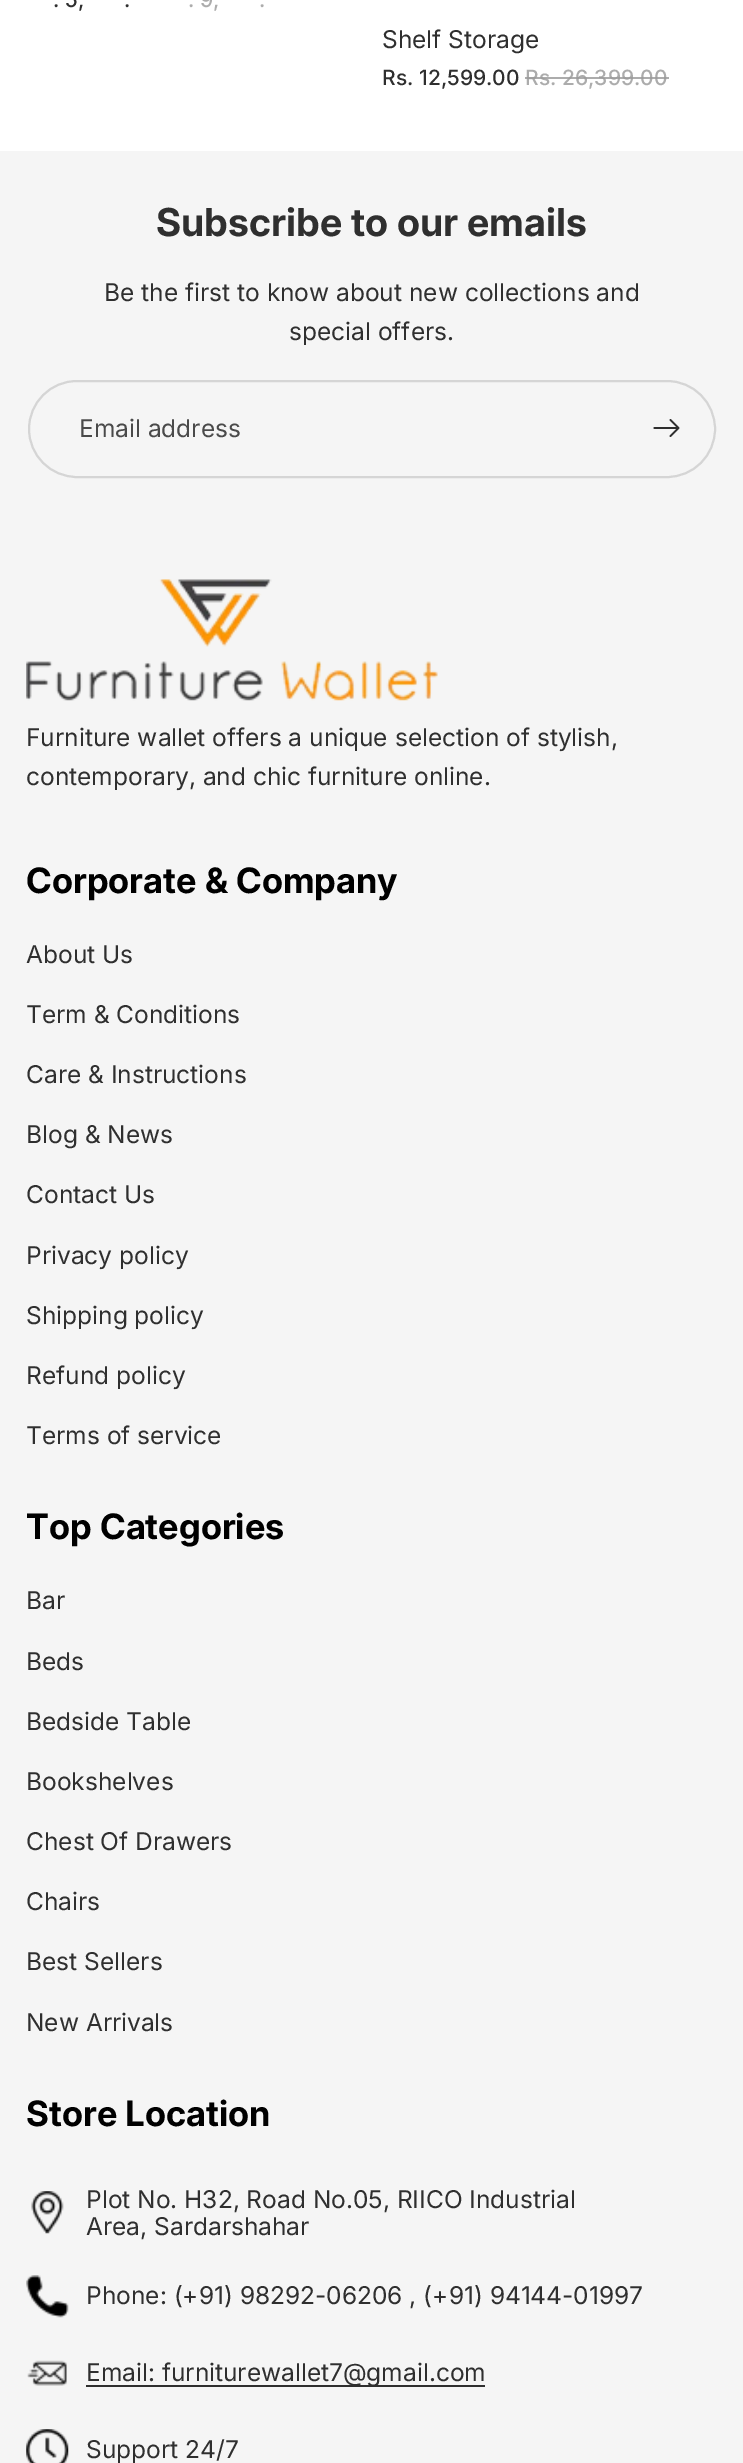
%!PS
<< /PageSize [743 2463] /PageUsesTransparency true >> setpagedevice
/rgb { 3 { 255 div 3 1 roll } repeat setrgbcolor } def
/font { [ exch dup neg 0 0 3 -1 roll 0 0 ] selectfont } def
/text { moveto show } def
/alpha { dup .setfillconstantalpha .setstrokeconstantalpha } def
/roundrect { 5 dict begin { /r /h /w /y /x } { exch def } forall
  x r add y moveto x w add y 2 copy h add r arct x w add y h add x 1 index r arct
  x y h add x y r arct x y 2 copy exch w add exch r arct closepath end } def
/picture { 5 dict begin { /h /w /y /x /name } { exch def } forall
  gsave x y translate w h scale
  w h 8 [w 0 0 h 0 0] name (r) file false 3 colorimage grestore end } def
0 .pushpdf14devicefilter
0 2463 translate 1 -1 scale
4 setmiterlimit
255 255 255 rgb
0 0 743 2463 rectfill
245 245 245 rgb
0 151 743 2312 rectfill
213 213 213 rgb
2 setlinewidth
29 381 686 96 48 roundrect stroke
(img_01.rgb) 653 419 27 18 picture
(img_02.rgb) 26 579 412 122 picture
(img_03.rgb) 31 2191 33 43 picture
(img_04.rgb) 26 2275 43 43 picture
(img_05.rgb) 27 2360 40 26 picture
47 47 47 rgb
86 2385 399 2 rectfill
(img_06.rgb) 26 2429 43 34 picture
/Inter-Medium 21 font
(. 5,) 53 7 text
(.) 124 7 text
172 172 172 rgb
(. 9,) 188 7 text
(.) 259 7 text
/Inter-Regular 24.5 font
47 47 47 rgb
(Shelf Storage) 382 48 text
/Inter-Medium 21 font
(Rs. 12,599.00) 382 85 text
172 172 172 rgb
(Rs. 26,399.00) 525 85 text
0.81 alpha
153 153 153 rgb
525 77 144 2 rectfill
/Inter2-Bold 38.5 font
1 alpha
47 47 47 rgb
(Subscribe to our emails) 156 236 text
/Inter-Regular 24.5 font
(Be the first to know about new collections and) 104 301 text
(special offers.) 289 340 text
74 74 74 rgb
(Email address) 79 437 text
47 47 47 rgb
(Furniture wallet offers a unique selection of stylish,) 26 746 text
(contemporary, and chic furniture online.) 26 785 text
/Inter-Bold 35 font
0 0 0 rgb
(Corporate & Company) 26 893 text
/Inter-Regular 24.5 font
47 47 47 rgb
(About Us) 26 963 text
(Term & Conditions) 26 1023 text
(Care & Instructions) 26 1083 text
(Blog & News) 26 1143 text
(Contact Us) 26 1203 text
(Privacy policy) 26 1264 text
(Shipping policy) 26 1324 text
(Refund policy) 26 1384 text
(Terms of service) 26 1444 text
/Inter-Bold 35 font
0 0 0 rgb
(Top Categories) 26 1539 text
/Inter-Regular 24.5 font
47 47 47 rgb
(Bar) 26 1609 text
(Beds) 26 1670 text
(Bedside Table) 26 1730 text
(Bookshelves) 26 1790 text
(Chest Of Drawers) 26 1850 text
(Chairs) 26 1910 text
(Best Sellers) 26 1970 text
(New Arrivals) 26 2031 text
/Inter-Bold 35 font
0 0 0 rgb
(Store Location) 26 2126 text
/Inter-Regular 24.5 font
47 47 47 rgb
(Plot No. H32, Road No.05, RIICO Industrial) 86 2208 text
(Area, Sardarshahar) 86 2235 text
(Phone: \(+91\) 98292-06206 , \(+91\) 94144-01997) 86 2304 text
(Email: furniturewallet7@gmail.com) 86 2381 text
(Support 24/7) 86 2458 text
.poppdf14devicefilter showpage
